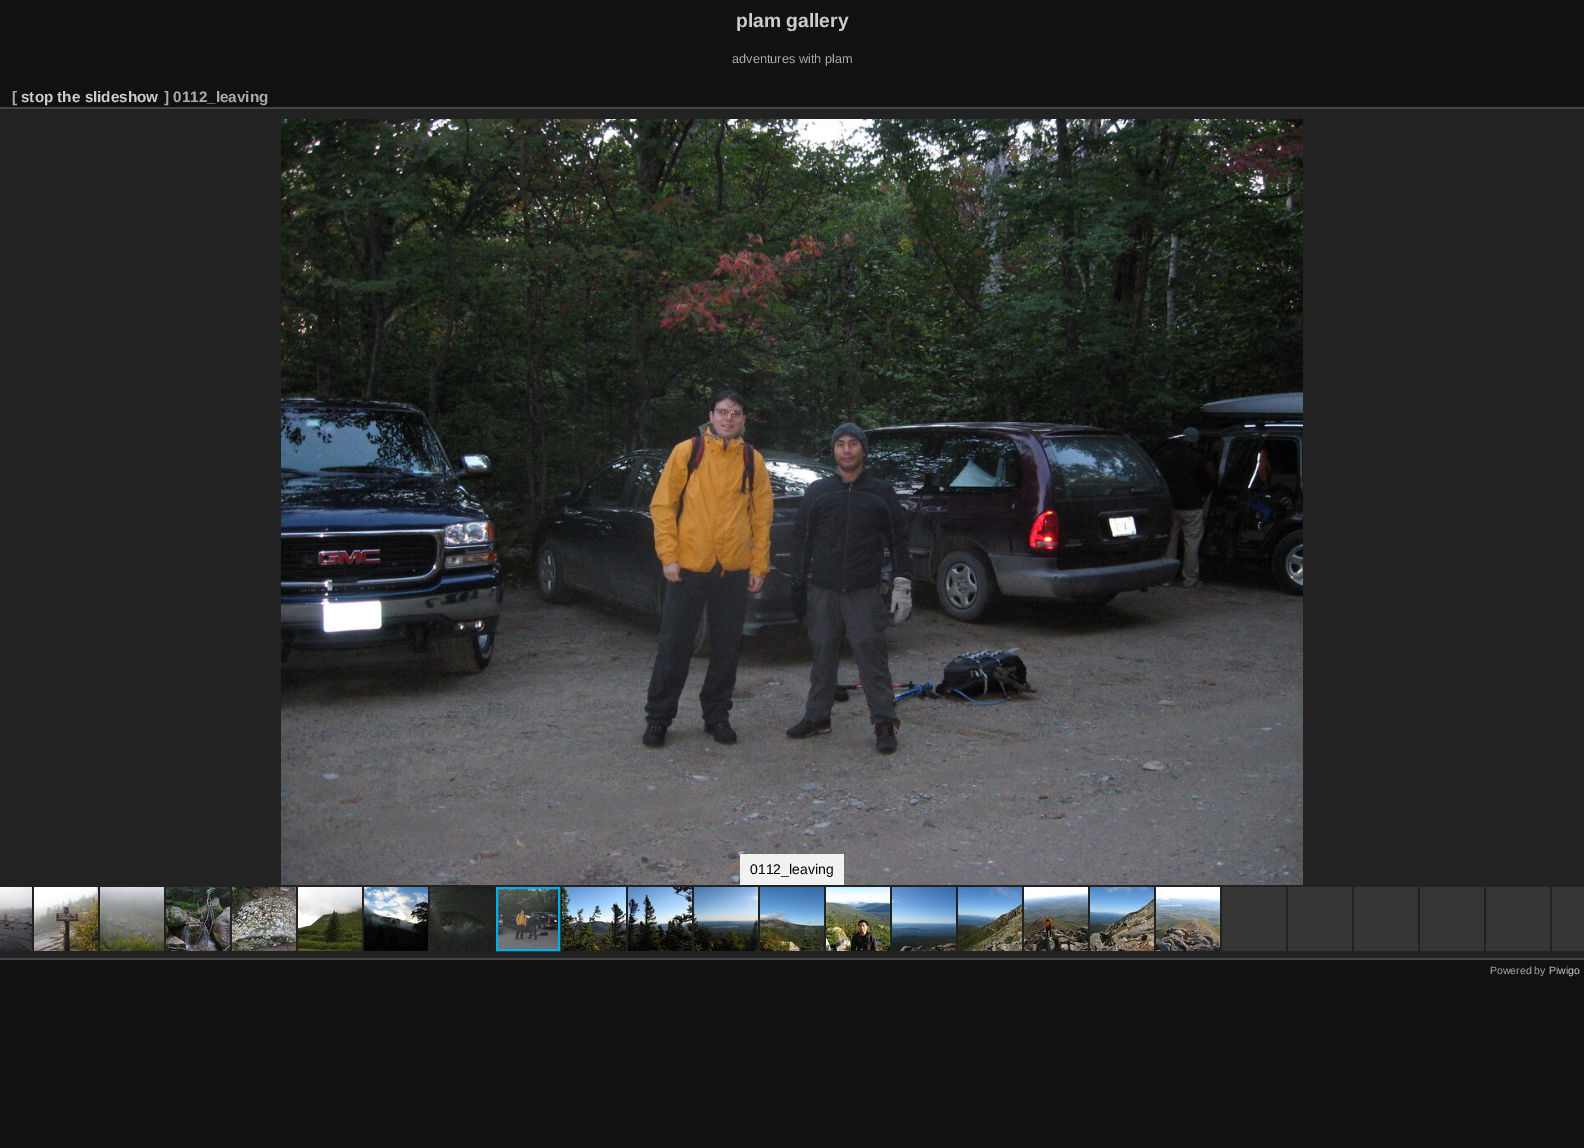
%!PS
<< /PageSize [1584 1148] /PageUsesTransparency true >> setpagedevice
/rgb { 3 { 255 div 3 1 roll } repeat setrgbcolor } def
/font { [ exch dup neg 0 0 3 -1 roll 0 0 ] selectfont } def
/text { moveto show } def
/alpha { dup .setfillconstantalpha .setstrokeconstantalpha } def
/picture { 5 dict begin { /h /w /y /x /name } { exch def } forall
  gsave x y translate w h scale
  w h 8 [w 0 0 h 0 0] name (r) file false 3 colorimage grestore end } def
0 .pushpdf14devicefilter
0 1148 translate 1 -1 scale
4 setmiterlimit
17 17 17 rgb
0 0 1584 1148 rectfill
68 68 68 rgb
0 107 1584 2 rectfill
34 34 34 rgb
0 109 1584 849 rectfill
68 68 68 rgb
0 958 1584 2 rectfill
(img_01.rgb) 281 119 1022 766 picture
0.9 alpha
255 255 255 rgb
740 854 104 31 rectfill
1 alpha
(img_02.rgb) 0 887 32 64 picture
(img_03.rgb) 34 887 64 64 picture
(img_04.rgb) 100 887 64 64 picture
(img_05.rgb) 166 887 64 64 picture
(img_06.rgb) 232 887 64 64 picture
(img_07.rgb) 298 887 64 64 picture
(img_08.rgb) 364 887 64 64 picture
(img_09.rgb) 430 887 64 64 picture
(img_20.rgb) 498 889 60 60 picture
0 175 234 rgb
2 setlinewidth
497 888 62 62 rectstroke
(img_10.rgb) 562 887 64 64 picture
(img_11.rgb) 628 887 64 64 picture
(img_12.rgb) 694 887 64 64 picture
(img_13.rgb) 760 887 64 64 picture
(img_14.rgb) 826 887 64 64 picture
(img_15.rgb) 892 887 64 64 picture
(img_16.rgb) 958 887 64 64 picture
(img_17.rgb) 1024 887 64 64 picture
(img_18.rgb) 1090 887 64 64 picture
(img_19.rgb) 1156 887 64 64 picture
53 53 53 rgb
1222 887 64 64 rectfill
1288 887 64 64 rectfill
1354 887 64 64 rectfill
1420 887 64 64 rectfill
1486 887 64 64 rectfill
1552 887 32 64 rectfill
/LiberationSans-Bold 19.25 font
204 204 204 rgb
(plam gallery) 736 27 text
/LiberationSans-Regular 12.75 font
170 170 170 rgb
(adventures with plam) 732 63 text
/LiberationSans-Bold 15.25 font
([) 12 102 text
204 204 204 rgb
(stop the slideshow) 21 102 text
170 170 170 rgb
(] 0112_leaving) 164 102 text
/LiberationSans-Regular 14 font
0 0 0 rgb
(0112_leaving) 750 874 text
/LiberationSans-Regular 10.5 font
170 170 170 rgb
(Powered by) 1490 974 text
204 204 204 rgb
(Piwigo) 1549 974 text
.poppdf14devicefilter showpage
